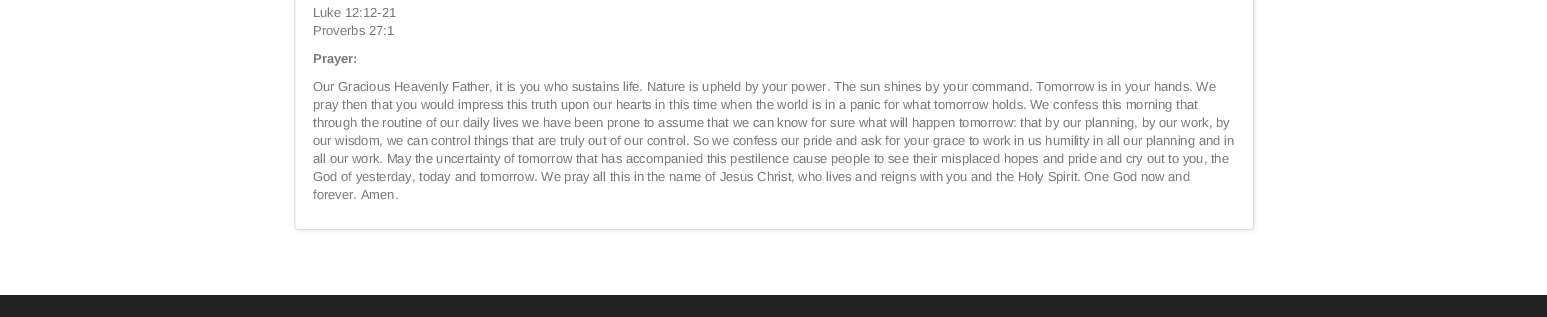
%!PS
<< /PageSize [1547 317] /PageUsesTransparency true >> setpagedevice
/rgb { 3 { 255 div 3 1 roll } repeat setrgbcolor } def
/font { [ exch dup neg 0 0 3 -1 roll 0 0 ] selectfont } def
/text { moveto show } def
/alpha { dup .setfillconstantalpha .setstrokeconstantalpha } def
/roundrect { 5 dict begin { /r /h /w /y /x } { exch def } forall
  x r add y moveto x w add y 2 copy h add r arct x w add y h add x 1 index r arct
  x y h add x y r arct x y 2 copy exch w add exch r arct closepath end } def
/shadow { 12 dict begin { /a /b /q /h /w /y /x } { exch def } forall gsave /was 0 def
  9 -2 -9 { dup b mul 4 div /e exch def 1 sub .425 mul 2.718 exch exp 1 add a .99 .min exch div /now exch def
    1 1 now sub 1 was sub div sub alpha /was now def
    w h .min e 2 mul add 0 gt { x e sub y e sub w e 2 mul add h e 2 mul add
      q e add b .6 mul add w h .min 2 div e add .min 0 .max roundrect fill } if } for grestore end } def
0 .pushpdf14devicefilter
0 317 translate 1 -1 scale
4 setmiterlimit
255 255 255 rgb
0 0 1547 317 rectfill
gsave
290 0 moveto 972 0 rlineto 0 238 rlineto -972 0 rlineto closepath 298 -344 moveto 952 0 rlineto 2 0 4 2 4 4 rcurveto 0 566 rlineto 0 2 -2 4 -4 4 rcurveto -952 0 rlineto -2 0 -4 -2 -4 -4 rcurveto 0 -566 rlineto 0 -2 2 -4 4 -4 rcurveto closepath eoclip newpath
242 242 242 rgb
296 -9 960 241 4 1.5 1 shadow
grestore
222 221 221 rgb
294.5 -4.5 959 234 3.5 roundrect stroke
34 34 34 rgb
0 295 1547 22 rectfill
/LiberationSans-Regular 13 font
121 121 121 rgb
(Luke 12:12-21) 313 17 text
(Proverbs 27:1) 313 35 text
/LiberationSans-Bold 13 font
(Prayer:) 313 63 text
/LiberationSans-Regular 13 font
(Our Gracious Heavenly Father, it is you who sustains life. Nature is upheld by your power. The sun shines by your command. Tomorrow is in your hands. We) 313 91 text
(pray then that you would impress this truth upon our hearts in this time when the world is in a panic for what tomorrow holds. We confess this morning that) 313 109 text
(through the routine of our daily lives we have been prone to assume that we can know for sure what will happen tomorrow: that by our planning, by our work, by) 313 127 text
(our wisdom, we can control things that are truly out of our control. So we confess our pride and ask for your grace to work in us humility in all our planning and in) 313 145 text
(all our work. May the uncertainty of tomorrow that has accompanied this pestilence cause people to see their misplaced hopes and pride and cry out to you, the) 313 163 text
(God of yesterday, today and tomorrow. We pray all this in the name of Jesus Christ, who lives and reigns with you and the Holy Spirit. One God now and) 313 181 text
(forever. Amen.) 313 199 text
.poppdf14devicefilter showpage
